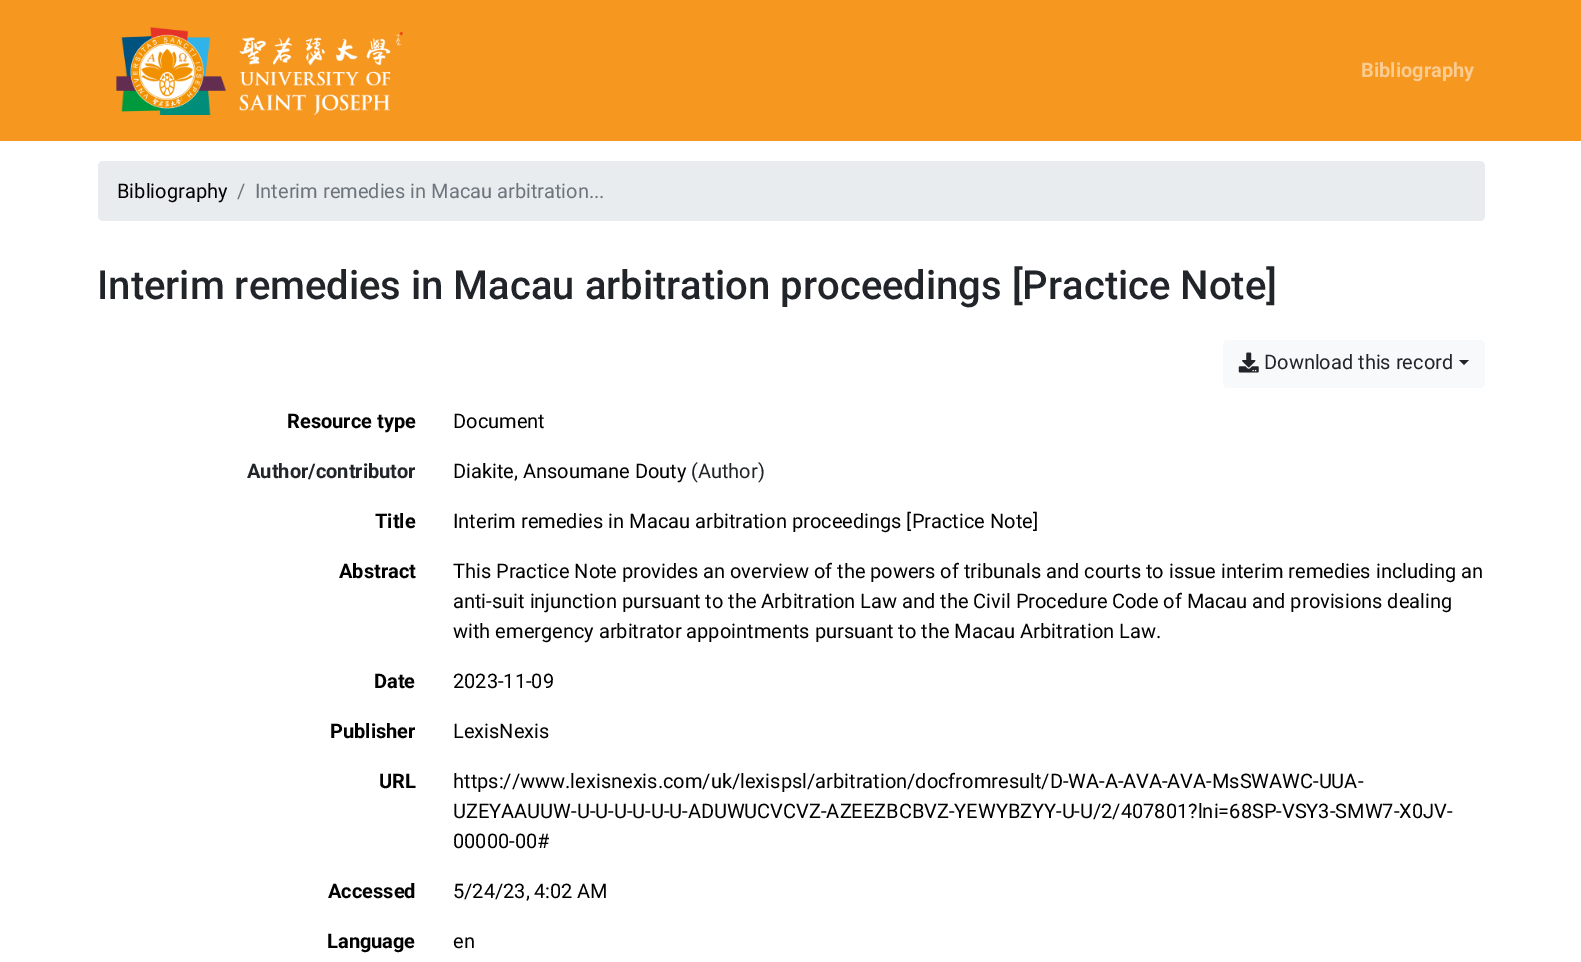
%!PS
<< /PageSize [1581 962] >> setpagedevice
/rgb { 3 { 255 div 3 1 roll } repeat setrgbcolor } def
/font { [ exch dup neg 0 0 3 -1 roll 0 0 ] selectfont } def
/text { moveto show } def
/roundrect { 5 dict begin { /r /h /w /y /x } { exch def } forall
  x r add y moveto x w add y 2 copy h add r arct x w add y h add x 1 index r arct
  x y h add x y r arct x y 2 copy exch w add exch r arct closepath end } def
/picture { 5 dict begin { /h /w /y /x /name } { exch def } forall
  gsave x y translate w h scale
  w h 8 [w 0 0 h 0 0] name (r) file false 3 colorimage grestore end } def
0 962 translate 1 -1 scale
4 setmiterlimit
255 255 255 rgb
0 0 1581 962 rectfill
246 151 31 rgb
0 0 1581 141 rectfill
(img_01.rgb) 116 27 287 88 picture
233 236 239 rgb
98 161 1387 60 5 roundrect fill
248 249 250 rgb
1223 340 262 48 5 roundrect fill
(img_02.rgb) 1238 352 21 21 picture
33 37 41 rgb
1459 360 moveto 10 0 rlineto -5 5 rlineto closepath fill
/Roboto-Bold 20 font
251 203 143 rgb
(Bibliography) 1361 77 text
/Roboto-Regular 20 font
0 0 0 rgb
(Bibliography) 117 198 text
108 117 125 rgb
(/) 237 198 text
(Interim remedies in Macau arbitration...) 255 198 text
/Roboto-Medium 40 font
33 37 41 rgb
(Interim remedies in Macau arbitration proceedings [Practice Note]) 97 299 text
/Roboto-Regular 20 font
(Download this record) 1264 369 text
/Roboto-Bold 20 font
0 0 0 rgb
(Resource type) 287 428 text
/Roboto-Regular 20 font
(Document) 453 428 text
/Roboto-Bold 20 font
33 37 41 rgb
(Author/contributor) 247 478 text
/Roboto-Regular 20 font
0 0 0 rgb
(Diakite, Ansoumane Douty) 453 478 text
33 37 41 rgb
(\(Author\)) 691 478 text
/Roboto-Bold 20 font
0 0 0 rgb
(Title) 375 528 text
/Roboto-Regular 20 font
(Interim remedies in Macau arbitration proceedings [Practice Note]) 453 528 text
/Roboto-Bold 20 font
(Abstract) 339 578 text
/Roboto-Regular 20 font
(This Practice Note provides an overview of the powers of tribunals and courts to issue interim remedies including an) 453 578 text
(anti-suit injunction pursuant to the Arbitration Law and the Civil Procedure Code of Macau and provisions dealing) 453 608 text
(with emergency arbitrator appointments pursuant to the Macau Arbitration Law.) 453 638 text
/Roboto-Bold 20 font
(Date) 374 688 text
/Roboto-Regular 20 font
(2023-11-09) 453 688 text
/Roboto-Bold 20 font
(Publisher) 330 738 text
/Roboto-Regular 20 font
(LexisNexis) 453 738 text
/Roboto-Bold 20 font
(URL) 379 788 text
/Roboto-Regular 20 font
(https://www.lexisnexis.com/uk/lexispsl/arbitration/docfromresult/D-WA-A-AVA-AVA-MsSWAWC-UUA-) 453 788 text
(UZEYAAUUW-U-U-U-U-U-U-ADUWUCVCVZ-AZEEZBCBVZ-YEWYBZYY-U-U/2/407801?lni=68SP-VSY3-SMW7-X0JV-) 453 818 text
(00000-00#) 453 848 text
/Roboto-Bold 20 font
(Accessed) 328 898 text
/Roboto-Regular 20 font
453 898 moveto -1 0 32 (5/24/23, 4:02) widthshow
(AM) 577 898 text
/Roboto-Bold 20 font
(Language) 327 948 text
/Roboto-Regular 20 font
(en) 453 948 text
showpage
